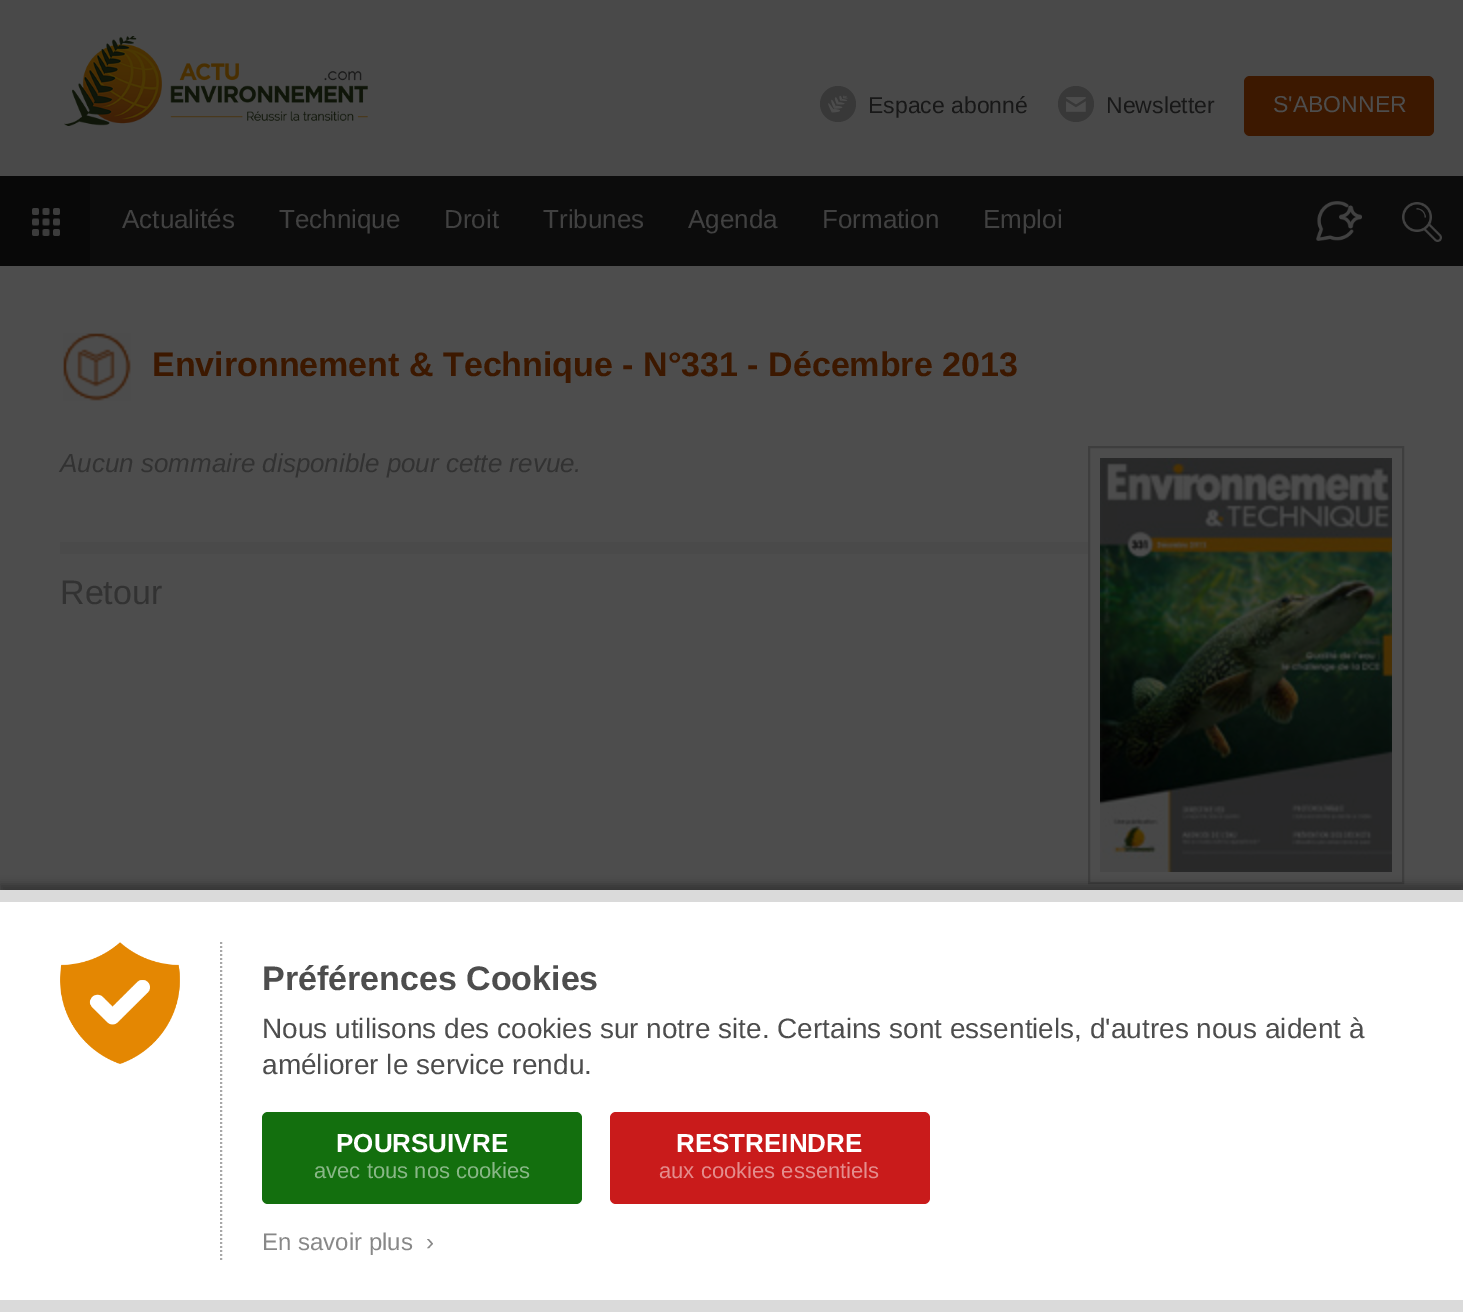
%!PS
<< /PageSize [1463 1312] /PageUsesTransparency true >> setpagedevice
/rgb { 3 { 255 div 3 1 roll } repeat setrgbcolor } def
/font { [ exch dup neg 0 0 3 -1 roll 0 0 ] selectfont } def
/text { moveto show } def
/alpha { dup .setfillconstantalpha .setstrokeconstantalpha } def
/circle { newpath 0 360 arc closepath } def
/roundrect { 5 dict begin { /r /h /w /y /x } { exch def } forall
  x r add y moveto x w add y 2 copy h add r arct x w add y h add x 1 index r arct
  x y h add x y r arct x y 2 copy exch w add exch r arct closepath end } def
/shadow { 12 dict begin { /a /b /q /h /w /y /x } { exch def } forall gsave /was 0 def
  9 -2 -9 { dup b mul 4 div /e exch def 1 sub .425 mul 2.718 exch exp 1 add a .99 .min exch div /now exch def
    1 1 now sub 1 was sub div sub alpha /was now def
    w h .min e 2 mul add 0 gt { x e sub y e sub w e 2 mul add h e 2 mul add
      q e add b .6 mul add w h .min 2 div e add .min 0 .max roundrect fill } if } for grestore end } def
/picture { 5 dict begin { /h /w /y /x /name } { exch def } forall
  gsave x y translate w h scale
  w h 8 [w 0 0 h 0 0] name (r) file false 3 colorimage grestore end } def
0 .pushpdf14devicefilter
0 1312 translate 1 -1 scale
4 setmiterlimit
77 77 77 rgb
0 0 1463 1312 rectfill
73 73 73 rgb
0 0 1463 176 rectfill
(img_01.rgb) 64 36 304 90 picture
56 56 56 rgb
838 104 18 circle fill
(img_02.rgb) 828 95 20 18 picture
1076 104 18 circle fill
(img_03.rgb) 1066 97 20 15 picture
60 24 0 rgb
1244 76 190 60 6 roundrect fill
12 12 12 rgb
90 176 1373 90 rectfill
8 8 8 rgb
0 176 90 90 rectfill
(img_04.rgb) 32 208 28 28 picture
(img_05.rgb) 1316 201 46 40 picture
(img_06.rgb) 1402 202 40 40 picture
(img_07.rgb) 63 333 68 68 picture
62 62 62 rgb
2 setlinewidth
1089 447 314 436 rectstroke
(img_08.rgb) 1100 458 292 414 picture
74 74 74 rgb
60 542 1028 12 rectfill
0 0 0 rgb
0 884 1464 422 0 4 0.3 shadow
255 255 255 rgb
0 902 1463 398 rectfill
218 218 218 rgb
0 890 1463 12 rectfill
0 1300 1463 12 rectfill
(img_09.rgb) 60 942 120 122 picture
168 168 168 rgb
[2 2] 0 setdash
221 942 moveto 0 318 rlineto stroke
19 111 14 rgb
262 1112 320 92 6 roundrect fill
201 27 27 rgb
610 1112 320 92 6 roundrect fill
/LiberationSans-Regular 23 font
24 24 24 rgb
(Espace abonné) 868 113 text
(Newsletter) 1106 113 text
77 77 77 rgb
(S'ABONNER) 1273 112 text
/LiberationSans-Regular 26 font
65 65 65 rgb
(Actualités) 122 228 text
(Technique) 279 228 text
(Droit) 444 228 text
(Tribunes) 543 228 text
(Agenda) 688 228 text
(Formation) 822 228 text
(Emploi) 983 228 text
/LiberationSans-Bold 34 font
60 24 0 rgb
(Environnement & Technique - N°331 - Décembre 2013) 152 376 text
/LiberationSans-Italic 26 font
50 50 50 rgb
(Aucun sommaire disponible pour cette revue.) 60 472 text
/LiberationSans-Regular 34 font
(Retour) 60 604 text
/LiberationSans-Bold 34 font
77 77 77 rgb
(Préférences Cookies) 262 990 text
/LiberationSans-Regular 28 font
(Nous utilisons des cookies sur notre site. Certains sont essentiels, d'autres nous aident à) 262 1038 text
(améliorer le service rendu.) 262 1074 text
/LiberationSans-Bold 26 font
255 255 255 rgb
(POURSUIVRE) 336 1152 text
/LiberationSans-Regular 22 font
137 183 135 rgb
(avec tous nos cookies) 314 1178 text
/LiberationSans-Bold 26 font
255 255 255 rgb
(RESTREINDRE) 676 1152 text
/LiberationSans-Regular 22 font
228 141 141 rgb
(aux cookies essentiels) 659 1178 text
/LiberationSans-Regular 24 font
136 136 136 rgb
(En savoir plus  ›) 262 1250 text
.poppdf14devicefilter showpage
